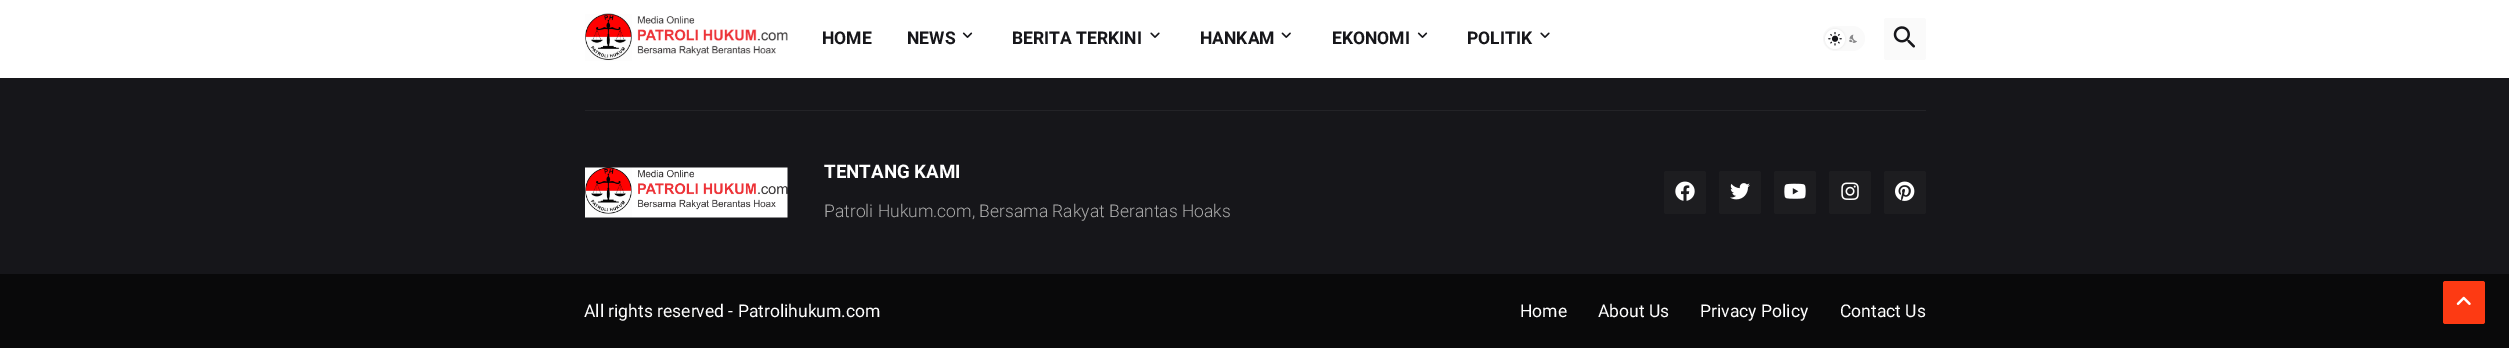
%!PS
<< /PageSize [2509 348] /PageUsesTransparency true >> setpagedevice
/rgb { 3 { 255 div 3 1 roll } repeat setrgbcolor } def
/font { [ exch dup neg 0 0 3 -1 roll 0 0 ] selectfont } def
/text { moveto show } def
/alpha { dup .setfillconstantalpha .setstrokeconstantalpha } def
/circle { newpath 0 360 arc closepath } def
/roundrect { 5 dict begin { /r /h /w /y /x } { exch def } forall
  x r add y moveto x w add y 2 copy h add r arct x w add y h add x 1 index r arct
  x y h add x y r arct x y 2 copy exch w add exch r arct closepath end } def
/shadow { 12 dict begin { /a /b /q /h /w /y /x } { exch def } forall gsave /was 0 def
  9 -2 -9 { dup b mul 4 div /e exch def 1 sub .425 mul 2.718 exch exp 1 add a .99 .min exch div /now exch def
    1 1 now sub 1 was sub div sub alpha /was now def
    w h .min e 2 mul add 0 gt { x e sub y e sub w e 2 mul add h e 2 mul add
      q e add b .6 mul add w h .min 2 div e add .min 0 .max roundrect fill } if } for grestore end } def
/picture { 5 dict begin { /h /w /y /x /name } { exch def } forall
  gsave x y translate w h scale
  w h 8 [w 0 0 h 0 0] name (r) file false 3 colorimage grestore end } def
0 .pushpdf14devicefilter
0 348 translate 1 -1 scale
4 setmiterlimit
22 22 26 rgb
0 0 2509 348 rectfill
255 255 255 rgb
0 0 2509 78 rectfill
(img_01.rgb) 585 13 203 48 picture
(img_02.rgb) 962 32 11 6 picture
(img_03.rgb) 1150 32 10 6 picture
(img_04.rgb) 1281 32 10 6 picture
(img_02.rgb) 1417 32 11 6 picture
(img_03.rgb) 1540 32 10 6 picture
250 250 250 rgb
1823 26 42 25 12.5 roundrect fill
0 0 0 rgb
1825 29 20 20 10 1 0.1 shadow
255 255 255 rgb
1835 39 10 circle fill
(img_05.rgb) 1828 32 14 14 picture
(img_06.rgb) 1849 34 8 9 picture
250 250 250 rgb
1884 18 42 42 2.5 roundrect fill
(img_07.rgb) 1893 26 22 22 picture
35 35 39 rgb
585 110 1341 1 rectfill
(img_08.rgb) 585 167 203 51 picture
29 29 32 rgb
1664 171 42 43 2.5 roundrect fill
(img_09.rgb) 1675 181 20 20 picture
1719 171 42 43 2.5 roundrect fill
(img_10.rgb) 1730 183 20 17 picture
1774 171 42 43 2.5 roundrect fill
(img_11.rgb) 1784 183 22 16 picture
1829 171 42 43 2.5 roundrect fill
(img_12.rgb) 1841 182 18 18 picture
1884 171 42 43 2.5 roundrect fill
(img_13.rgb) 1895 181 20 20 picture
9 9 10 rgb
0 274 2509 74 rectfill
253 58 19 rgb
2443 281 42 43 2.5 roundrect fill
(img_14.rgb) 2456 296 15 9 picture
/Roboto-Bold 17.5 font
22 22 26 rgb
(HOME) 822 44 text
(NEWS) 907 44 text
(BERITA TERKINI) 1012 44 text
(HANKAM) 1200 44 text
(EKONOMI) 1332 44 text
(POLITIK) 1467 44 text
/Roboto-Bold 18.75 font
255 255 255 rgb
(TENTANG KAMI) 824 178 text
/Roboto-Light 17.5 font
170 170 170 rgb
(Patroli Hukum.com, Bersama Rakyat Berantas Hoaks) 824 217 text
/Roboto-Regular 17.5 font
255 255 255 rgb
(All rights reserved - Patrolihukum.com) 584 317 text
(Home) 1520 317 text
(About Us) 1598 317 text
(Privacy Policy) 1700 317 text
(Contact Us) 1840 317 text
.poppdf14devicefilter showpage
